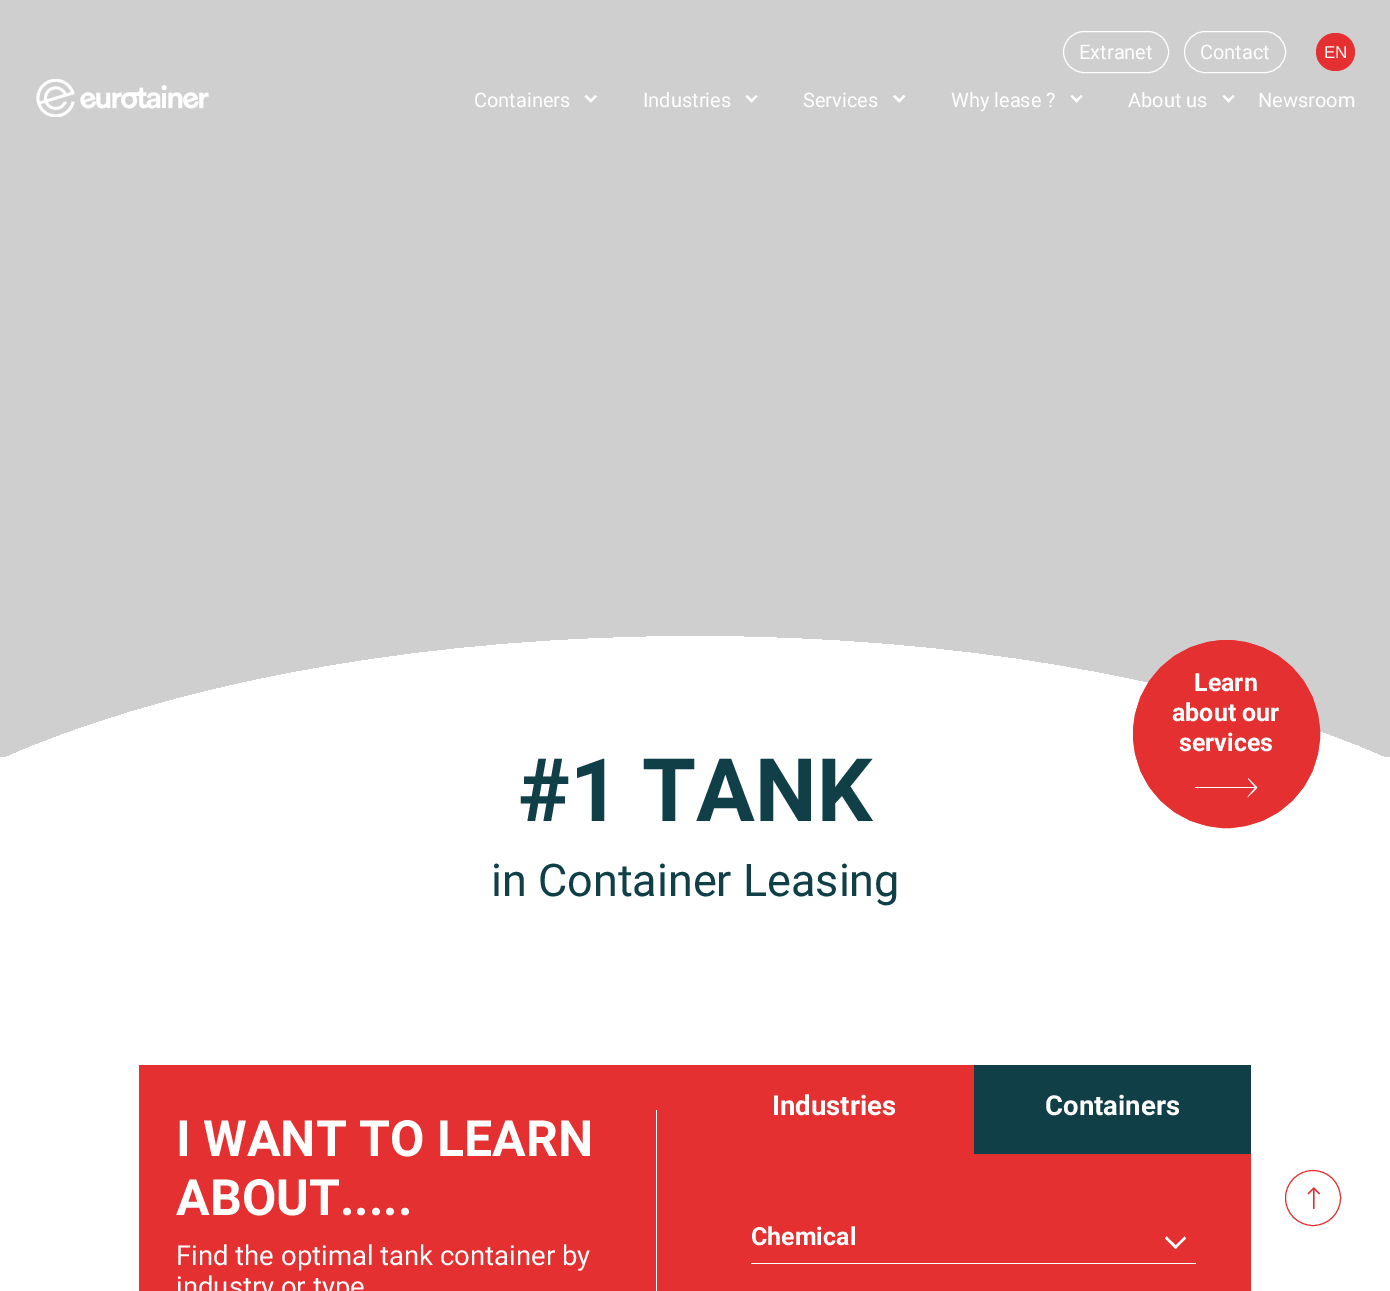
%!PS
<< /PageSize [1390 1291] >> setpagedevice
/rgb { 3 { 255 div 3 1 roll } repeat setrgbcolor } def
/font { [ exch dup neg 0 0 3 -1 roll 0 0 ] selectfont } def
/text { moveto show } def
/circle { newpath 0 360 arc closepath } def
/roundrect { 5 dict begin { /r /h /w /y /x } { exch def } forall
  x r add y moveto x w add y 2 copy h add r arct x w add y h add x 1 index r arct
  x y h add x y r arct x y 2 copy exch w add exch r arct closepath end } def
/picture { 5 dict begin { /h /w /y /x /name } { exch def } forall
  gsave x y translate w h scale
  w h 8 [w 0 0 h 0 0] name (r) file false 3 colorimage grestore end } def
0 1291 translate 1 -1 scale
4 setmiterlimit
255 255 255 rgb
0 0 1390 1291 rectfill
gsave 0 0 moveto 1390 0 rlineto 0 757 rlineto -1390 0 rlineto closepath clip newpath 695 1011 translate 1251 500 scale
<< /ShadingType 3 /ColorSpace /DeviceRGB /Coords [0 0 0 0 0 1] /Extend [true true] /Function << /FunctionType 3 /Domain [0 1] /Functions [<< /FunctionType 2 /Domain [0 1] /C0 [1 1 1] /C1 [1 1 1] /N 1 >> << /FunctionType 2 /Domain [0 1] /C0 [0.812 0.812 0.812] /C1 [0.812 0.812 0.812] /N 1 >>] /Bounds [0.75] /Encode [0 1 0 1] >> >> shfill grestore
1063.5 31.5 105 41 20.5 roundrect stroke
1184.5 31.5 101 41 20.5 roundrect stroke
228 48 49 rgb
1316 33 39 38 19 roundrect fill
(img_01.rgb) 36 79 173 38 picture
255 255 255 rgb
589 101 moveto 6.5 -6 rlineto 1.5 1.5 rlineto -6 6 rlineto closepath fill
584.5 96.5 moveto 2 -1.5 rlineto 6 6 rlineto -1.5 1.5 rlineto closepath fill
750 101 moveto 6 -6 rlineto 1.5 1.5 rlineto -6 6 rlineto closepath fill
745.5 96.5 moveto 1.5 -1.5 rlineto 6.5 6 rlineto -2 1.5 rlineto closepath fill
897.5 101 moveto 6 -6 rlineto 2 1.5 rlineto -6.5 6 rlineto closepath fill
893 96.5 moveto 2 -1.5 rlineto 6 6 rlineto -2 1.5 rlineto closepath fill
1075 101 moveto 6 -6 rlineto 1.5 1.5 rlineto -6 6 rlineto closepath fill
1070.5 96.5 moveto 1.5 -1.5 rlineto 6.5 6 rlineto -2 1.5 rlineto closepath fill
1227 101 moveto 6 -6 rlineto 1.5 1.5 rlineto -6 6 rlineto closepath fill
1222.5 96.5 moveto 1.5 -1.5 rlineto 6.5 6 rlineto -2 1.5 rlineto closepath fill
228 48 49 rgb
1133.5 640.5 186 187 93 roundrect gsave fill grestore
stroke
255 255 255 rgb
1257 787 moveto -9 -9 rlineto 0 1 rlineto 7 8 rlineto -60 0 rlineto 0 0 0 1 1 1 rcurveto 59 0 rlineto -6 7 rlineto -1 1 -2 3 -1 2 rcurveto 3 -3 rlineto 1 -1 7 -6 6 -7 rcurveto fill
228 48 49 rgb
139 1065 1112 226 rectfill
255 255 255 rgb
656 1110 1 181 rectfill
16 63 71 rgb
974 1065 277 89 rectfill
255 255 255 rgb
751 1263 445 1 rectfill
1184.5 1236.5 moveto 1.5 2 rlineto -10.5 10.5 rlineto -1.5 -2 rlineto closepath fill
1166.5 1236.5 moveto 11 10.5 rlineto -2 2 rlineto -10.5 -10.5 rlineto closepath fill
228 48 49 rgb
1313 1198 27.5 circle stroke
(img_02.rgb) 1307 1187 13 23 picture
/Roboto-Regular 20 font
255 255 255 rgb
(Extranet) 1079 59 text
(Contact) 1200 59 text
/LiberationSans-Regular 17 font
(EN) 1324 58 text
/Roboto-Regular 20 font
(Containers) 474 107 text
(Industries) 643 107 text
(Services) 803 107 text
(Why lease ?) 951 107 text
(About us) 1128 107 text
(Newsroom) 1258 107 text
/Roboto-Bold 25 font
(Learn) 1194 691 text
(about our) 1172 721 text
(services) 1179 751 text
/Roboto-Bold 87.5 font
16 63 71 rgb
(#1 TANK) 518 821 text
/Roboto-Regular 45 font
(in Container Leasing) 491 896 text
/Roboto-Bold 50 font
255 255 255 rgb
(I WANT TO LEARN) 176 1156 text
(ABOUT.....) 176 1215 text
/Roboto-Regular 27.5 font
(Find the optimal tank container by) 176 1265 text
(industry or type) 176 1296 text
/Roboto-Bold 27.5 font
(Industries) 772 1115 text
(Containers) 1045 1115 text
/Roboto-Bold 25 font
(Chemical) 751 1245 text
showpage
